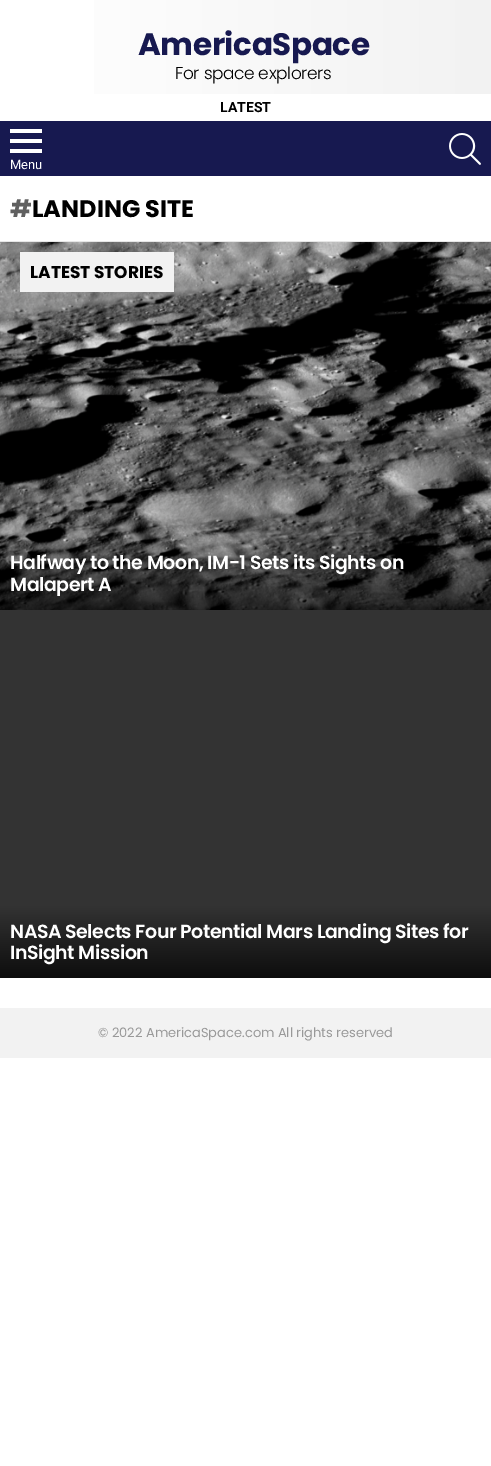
%!PS
<< /PageSize [491 1466] >> setpagedevice
/rgb { 3 { 255 div 3 1 roll } repeat setrgbcolor } def
/font { [ exch dup neg 0 0 3 -1 roll 0 0 ] selectfont } def
/text { moveto show } def
/picture { 5 dict begin { /h /w /y /x /name } { exch def } forall
  gsave x y translate w h scale
  w h 8 [w 0 0 h 0 0] name (r) file false 3 colorimage grestore end } def
0 1466 translate 1 -1 scale
4 setmiterlimit
255 255 255 rgb
0 0 491 1466 rectfill
gsave 94 0 moveto 397 0 rlineto 0 94 rlineto -397 0 rlineto closepath clip newpath
<< /ShadingType 2 /ColorSpace /DeviceRGB /Coords [0 47 491 47] /Extend [true true] /Function << /FunctionType 2 /Domain [0 1] /C0 [1 1 1] /C1 [0.949 0.949 0.949] /N 1 >> >> shfill grestore
23 25 80 rgb
0 121 491 55 rectfill
(img_01.rgb) 10 129 32 24 picture
(img_02.rgb) 449 133 32 32 picture
230 230 230 rgb
0 241 491 1 rectfill
(img_03.rgb) 0 242 491 368 picture
242 242 242 rgb
20 252 154 40 rectfill
51 51 51 rgb
0 610 491 296 rectfill
gsave 0 906 moveto 491 0 rlineto 0 72 rlineto -491 0 rlineto closepath clip newpath
<< /ShadingType 2 /ColorSpace /DeviceRGB /Coords [246 906 246 978] /Extend [true true] /Function << /FunctionType 2 /Domain [0 1] /C0 [0.2 0.2 0.2] /C1 [0.051 0.051 0.051] /N 1 >> >> shfill grestore
242 242 242 rgb
0 1008 491 50 rectfill
/Poppins-Bold 31 font
23 25 80 rgb
138 55 moveto -0.4 0 (AmericaSpace) ashow
/Poppins-Light 17 font
0 0 0 rgb
175 79 moveto -0.4 0 (For space explorers) ashow
/Roboto-Bold 14 font
(LATEST) 220 112 text
/Roboto-Regular 13 font
255 255 255 rgb
(Menu) 10 169 text
/Poppins-Bold 24 font
96 96 96 rgb
(#) 10 217 text
0 0 0 rgb
(LANDING SITE) 32 217 text
/Poppins-Bold 17 font
(LATEST STORIES) 30 278 text
/Poppins-SemiBold 19 font
255 255 255 rgb
10 569 moveto -0.45 0 (Halfway to the Moon, IM-1 Sets its Sights on) ashow
10 591 moveto -0.45 0 (Malapert A) ashow
10 938 moveto -0.45 0 (NASA Selects Four Potential Mars Landing Sites for) ashow
10 959 moveto -0.45 0 (InSight Mission) ashow
/Poppins-Regular 13 font
153 153 153 rgb
(© 2022 AmericaSpace.com All rights reserved) 98 1037 text
showpage
